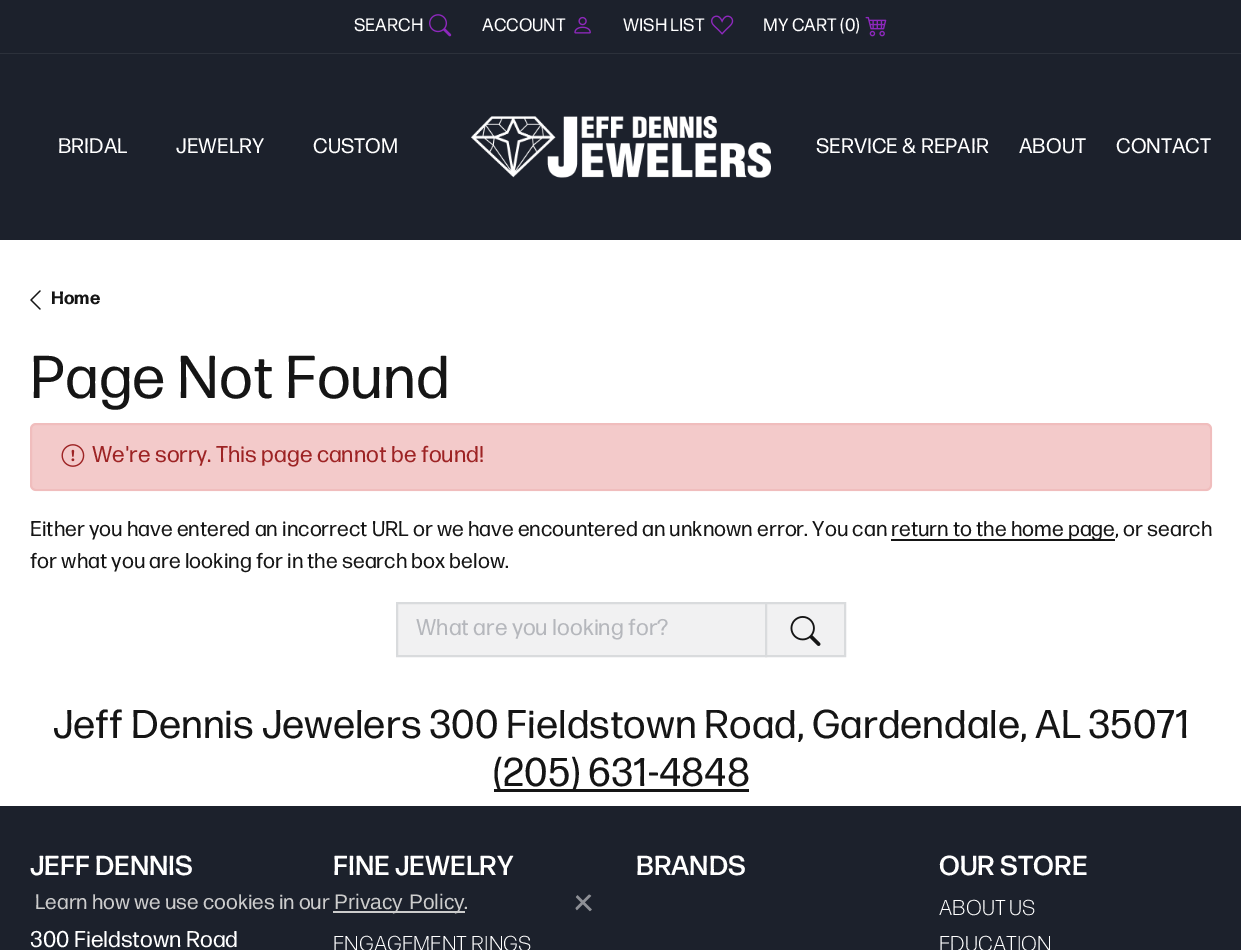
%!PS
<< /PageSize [1241 950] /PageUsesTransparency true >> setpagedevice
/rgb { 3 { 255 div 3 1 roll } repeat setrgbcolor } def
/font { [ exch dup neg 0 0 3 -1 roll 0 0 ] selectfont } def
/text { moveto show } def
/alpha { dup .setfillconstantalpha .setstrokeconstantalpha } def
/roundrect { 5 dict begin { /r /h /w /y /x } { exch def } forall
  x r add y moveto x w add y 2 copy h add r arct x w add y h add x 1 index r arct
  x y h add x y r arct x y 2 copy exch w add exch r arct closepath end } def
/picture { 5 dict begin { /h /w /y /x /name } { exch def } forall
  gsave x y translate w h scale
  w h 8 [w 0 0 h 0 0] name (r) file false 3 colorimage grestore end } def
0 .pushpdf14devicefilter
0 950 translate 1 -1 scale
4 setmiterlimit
255 255 255 rgb
0 0 1241 950 rectfill
28 33 44 rgb
0 0 1241 53 rectfill
44 49 59 rgb
0 53 1241 1 rectfill
(img_01.rgb) 429 14 23 23 picture
(img_02.rgb) 574 16 17 18 picture
(img_03.rgb) 711 15 23 20 picture
(img_04.rgb) 865 16 22 21 picture
28 33 44 rgb
0 54 1241 186 rectfill
(img_05.rgb) 471 116 300 62 picture
(img_06.rgb) 30 290 11 20 picture
243 202 202 rgb
30 423 1182 68 6 roundrect fill
0.1 alpha
216 78 79 rgb
2 setlinewidth
31 424 1180 66 5 roundrect stroke
1 alpha
(img_07.rgb) 61 444 24 23 picture
21 21 21 rgb
891 539 224 2 rectfill
241 241 242 rgb
397 603 moveto 369 0 rlineto 0 53 rlineto -369 0 rlineto closepath gsave fill grestore
217 219 221 rgb
stroke
241 241 242 rgb
766 603 moveto 79 0 rlineto 0 53 rlineto -79 0 rlineto closepath gsave fill grestore
217 219 221 rgb
stroke
(img_08.rgb) 790 616 31 30 picture
21 21 21 rgb
494 789 255 3 rectfill
28 33 44 rgb
0 806 1241 144 rectfill
204 204 204 rgb
333 911 132 2 rectfill
(img_09.rgb) 575 894 17 18 picture
/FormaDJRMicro-Regular 18 font
255 255 255 rgb
(SEARCH) 354 31 text
(ACCOUNT) 482 31 text
(WISH LIST) 623 31 text
(MY CART \(0\)) 763 31 text
/FormaDJRMicro-Regular 21 font
(BRIDAL) 58 153 text
(JEWELRY) 176 153 text
(CUSTOM) 313 153 text
(SERVICE & REPAIR) 816 153 text
(ABOUT) 1019 153 text
(CONTACT) 1116 153 text
/FormaDJRMicro-Bold 18 font
21 21 21 rgb
(Home) 51 304 text
/FormaDJRMicro-Regular 60.25 font
(Page Not Found) 30 398 text
/FormaDJRMicro-Regular 22.75 font
157 35 36 rgb
(We're sorry. This page cannot be found!) 92 462 text
/FormaDJRMicro-Regular 21.25 font
21 21 21 rgb
(Either you have entered an incorrect URL or we have encountered an unknown error. You can) 30 536 text
(return to the home page) 891 536 text
(, or search) 1115 536 text
(for what you are looking for in the search box below.) 30 568 text
/FormaDJRMicro-Regular 22.75 font
181 183 188 rgb
(What are you looking for?) 416 635 text
/FormaDJRMicro-Regular 40.15 font
21 21 21 rgb
(Jeff Dennis Jewelers 300 Fieldstown Road, Gardendale, AL 35071) 53 738 text
(\(205\) 631-4848) 493 786 text
/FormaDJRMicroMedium-Medium 27.5 font
255 255 255 rgb
(JEFF DENNIS) 30 875 text
/FormaDJRMicro-Regular 22.75 font
(300 Fieldstown Road) 30 947 text
/FormaDJRMicroMedium-Medium 27.5 font
(FINE JEWELRY) 333 875 text
/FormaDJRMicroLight-Light 21.5 font
(ENGAGEMENT RINGS) 333 951 text
/FormaDJRMicroMedium-Medium 27.5 font
(BRANDS) 636 875 text
(OUR STORE) 939 875 text
/FormaDJRMicroLight-Light 21.5 font
(ABOUT US) 939 915 text
(EDUCATION) 939 951 text
/FormaDJRMicro-Regular 21 font
204 204 204 rgb
(Learn how we use cookies in our) 35 909 text
/LiberationSans-Regular 21 font
(Privacy Policy) 334 909 text
/FormaDJRMicro-Regular 21 font
(.) 464 909 text
.poppdf14devicefilter showpage
